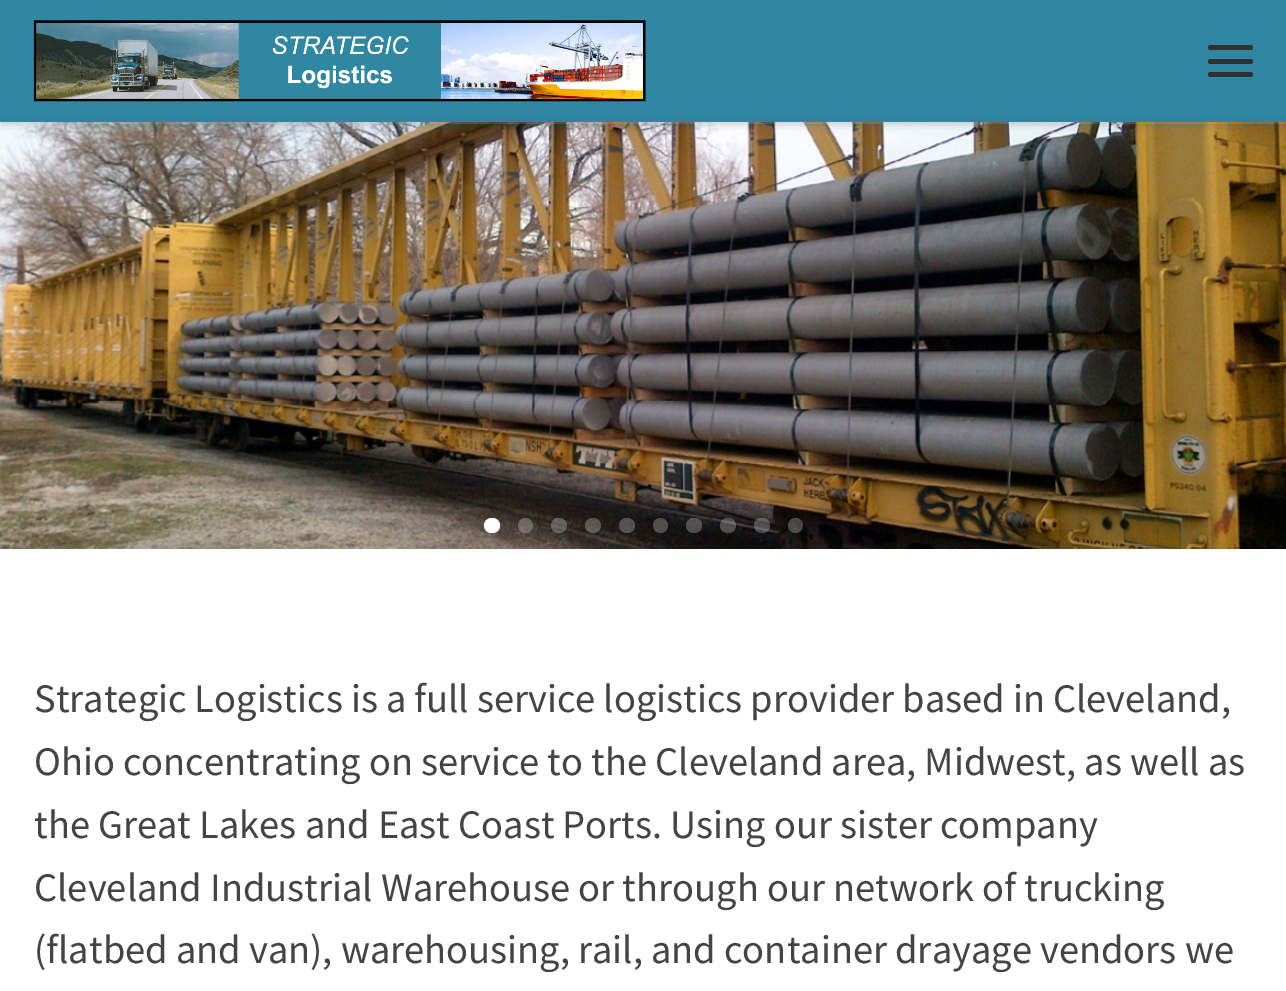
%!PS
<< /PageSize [1286 991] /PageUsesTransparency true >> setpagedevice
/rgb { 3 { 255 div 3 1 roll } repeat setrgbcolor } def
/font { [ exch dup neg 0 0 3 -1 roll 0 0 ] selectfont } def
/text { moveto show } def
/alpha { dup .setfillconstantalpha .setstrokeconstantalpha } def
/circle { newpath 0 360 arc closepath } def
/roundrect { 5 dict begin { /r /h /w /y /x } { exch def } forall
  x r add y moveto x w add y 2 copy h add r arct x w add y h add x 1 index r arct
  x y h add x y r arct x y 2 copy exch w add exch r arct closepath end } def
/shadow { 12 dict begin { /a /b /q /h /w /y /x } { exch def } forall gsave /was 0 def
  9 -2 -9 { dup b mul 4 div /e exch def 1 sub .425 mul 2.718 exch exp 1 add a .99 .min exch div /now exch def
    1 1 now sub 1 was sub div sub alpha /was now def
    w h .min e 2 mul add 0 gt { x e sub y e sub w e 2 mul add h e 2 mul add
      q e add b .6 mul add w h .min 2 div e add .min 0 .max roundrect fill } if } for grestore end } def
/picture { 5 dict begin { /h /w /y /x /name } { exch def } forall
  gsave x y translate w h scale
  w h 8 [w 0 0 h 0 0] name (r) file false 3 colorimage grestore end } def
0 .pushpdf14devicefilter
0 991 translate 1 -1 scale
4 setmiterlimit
255 255 255 rgb
0 0 1286 991 rectfill
(img_02.rgb) 0 122 1286 427 picture
102 102 102 rgb
0 5 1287 121 0 2 0.08 shadow
0.15 alpha
255 255 255 rgb
0 122 1286 2 rectfill
1 alpha
0 0 0 rgb
0 0 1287 122 0 5.5 0.2 shadow
48 135 163 rgb
0 0 1286 122 rectfill
(img_01.rgb) 33 20 613 82 picture
49 49 49 rgb
1208 45 45 5 2.5 roundrect fill
1208 59 45 5 2.5 roundrect fill
1208 72 45 5 2.5 roundrect fill
48 129 154 rgb
0 119 1286 2 rectfill
255 255 255 rgb
484 518 16 15 7.5 roundrect fill
0.25 alpha
525.5 525.5 7.5 circle fill
551 518 16 15 7.5 roundrect fill
585 518 16 15 7.5 roundrect fill
619 518 16 15 7.5 roundrect fill
660.5 525.5 7.5 circle fill
686 518 16 15 7.5 roundrect fill
720 518 16 15 7.5 roundrect fill
754 518 16 15 7.5 roundrect fill
795.5 525.5 7.5 circle fill
/SourceSansPro-Regular 40.5 font
1 alpha
68 68 68 rgb
(Strategic Logistics is a full service logistics provider based in Cleveland,) 34 712 text
(Ohio concentrating on service to the Cleveland area, Midwest, as well as) 34 775 text
(the Great Lakes and East Coast Ports. Using our sister company) 34 838 text
(Cleveland Industrial Warehouse or through our network of trucking) 34 901 text
(\(flatbed and van\), warehousing, rail, and container drayage vendors we) 34 963 text
.poppdf14devicefilter showpage
